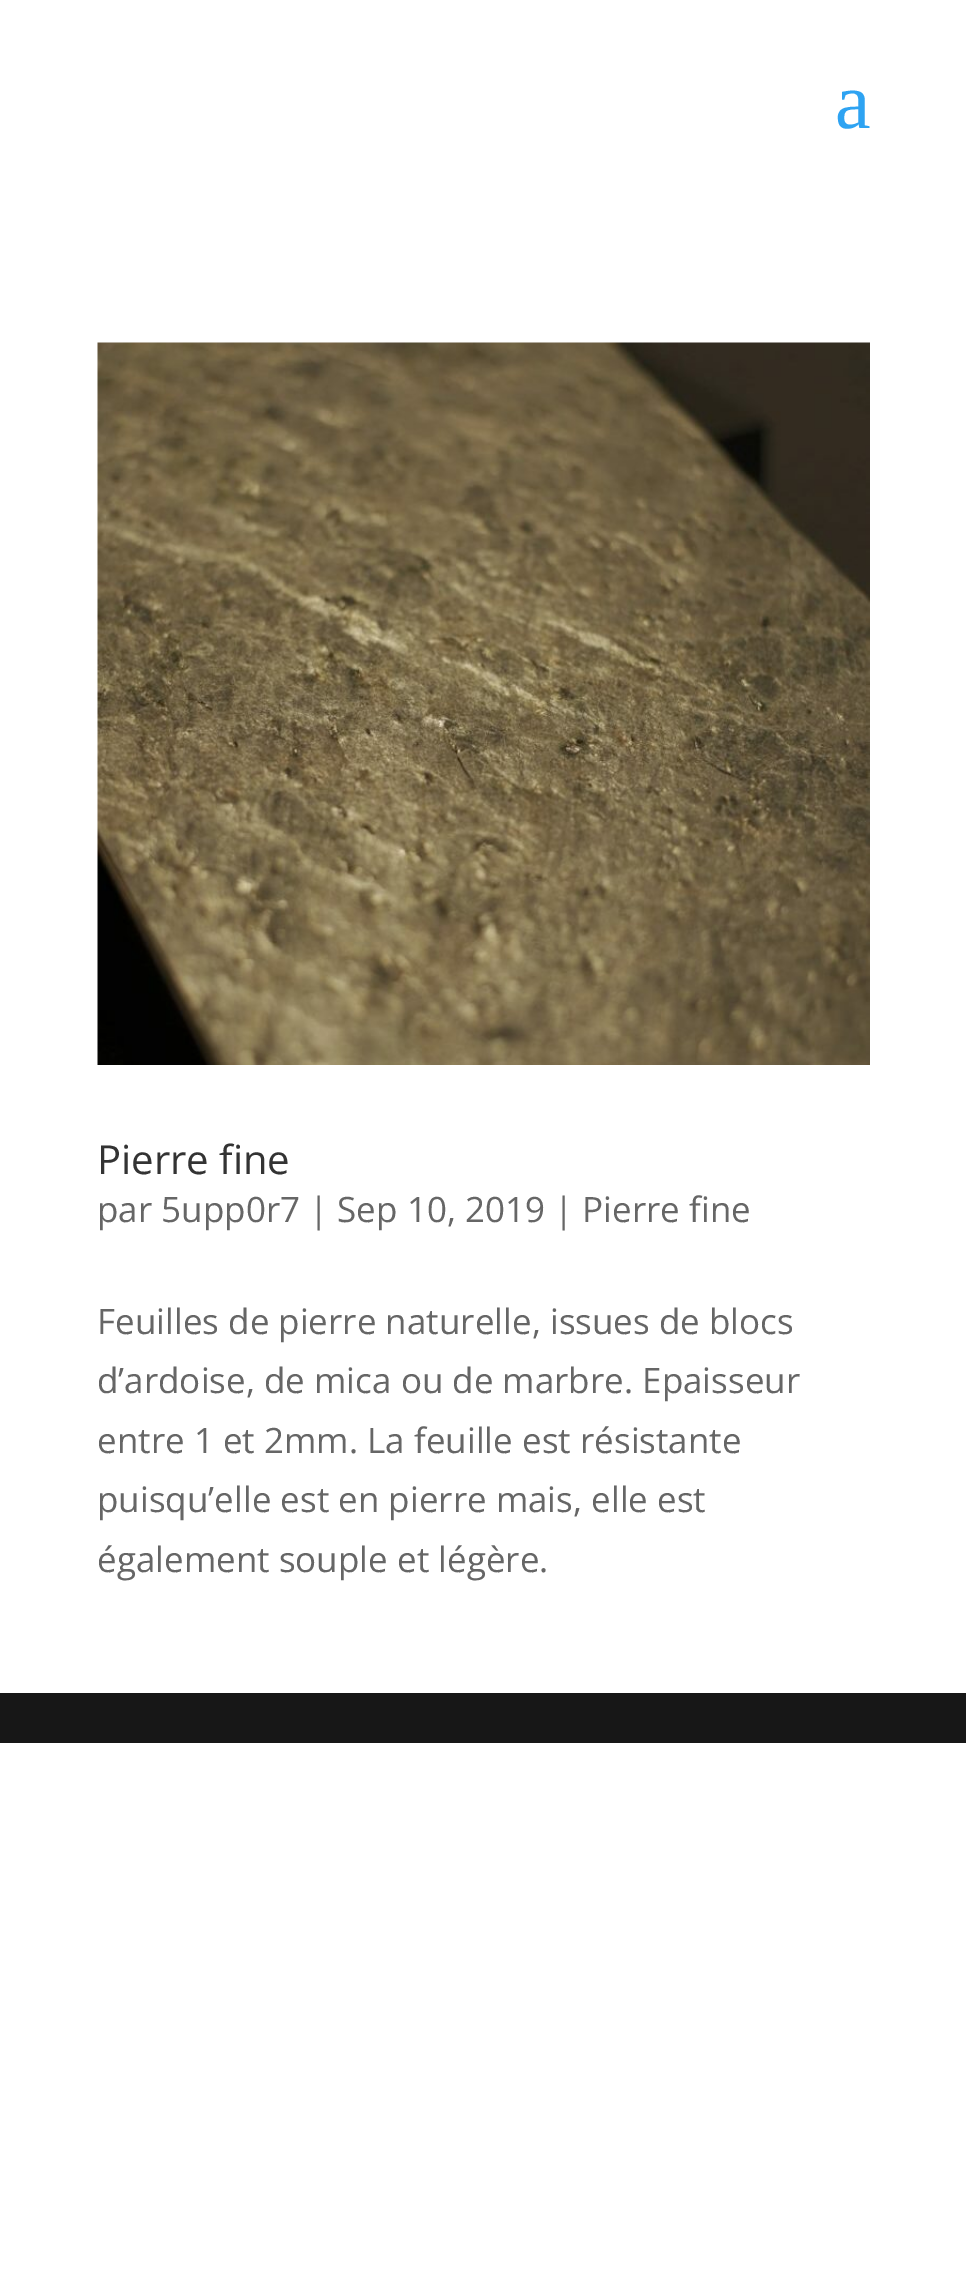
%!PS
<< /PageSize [966 2286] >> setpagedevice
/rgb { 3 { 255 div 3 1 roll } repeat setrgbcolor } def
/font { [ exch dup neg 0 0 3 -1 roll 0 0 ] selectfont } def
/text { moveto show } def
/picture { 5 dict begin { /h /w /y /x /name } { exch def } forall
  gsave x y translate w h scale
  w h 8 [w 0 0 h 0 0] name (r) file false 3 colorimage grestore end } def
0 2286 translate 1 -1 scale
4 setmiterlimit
255 255 255 rgb
0 0 966 2286 rectfill
(img_01.rgb) 97 342 773 723 picture
23 23 23 rgb
0 1693 966 50 rectfill
/LiberationSerif-Regular 80 font
46 163 242 rgb
(a) 835 128 text
/OpenSans-Regular 40 font
51 51 51 rgb
(Pierre fine) 97 1174 text
/OpenSans-Regular 35 font
102 102 102 rgb
(par 5upp0r7 | Sep 10, 2019 | Pierre fine) 97 1222 text
(Feuilles de pierre naturelle, issues de blocs) 97 1334 text
(d’ardoise, de mica ou de marbre. Epaisseur) 97 1393 text
(entre 1 et 2mm. La feuille est résistante) 97 1453 text
(puisqu’elle est en pierre mais, elle est) 97 1512 text
(également souple et légère.) 97 1572 text
showpage
